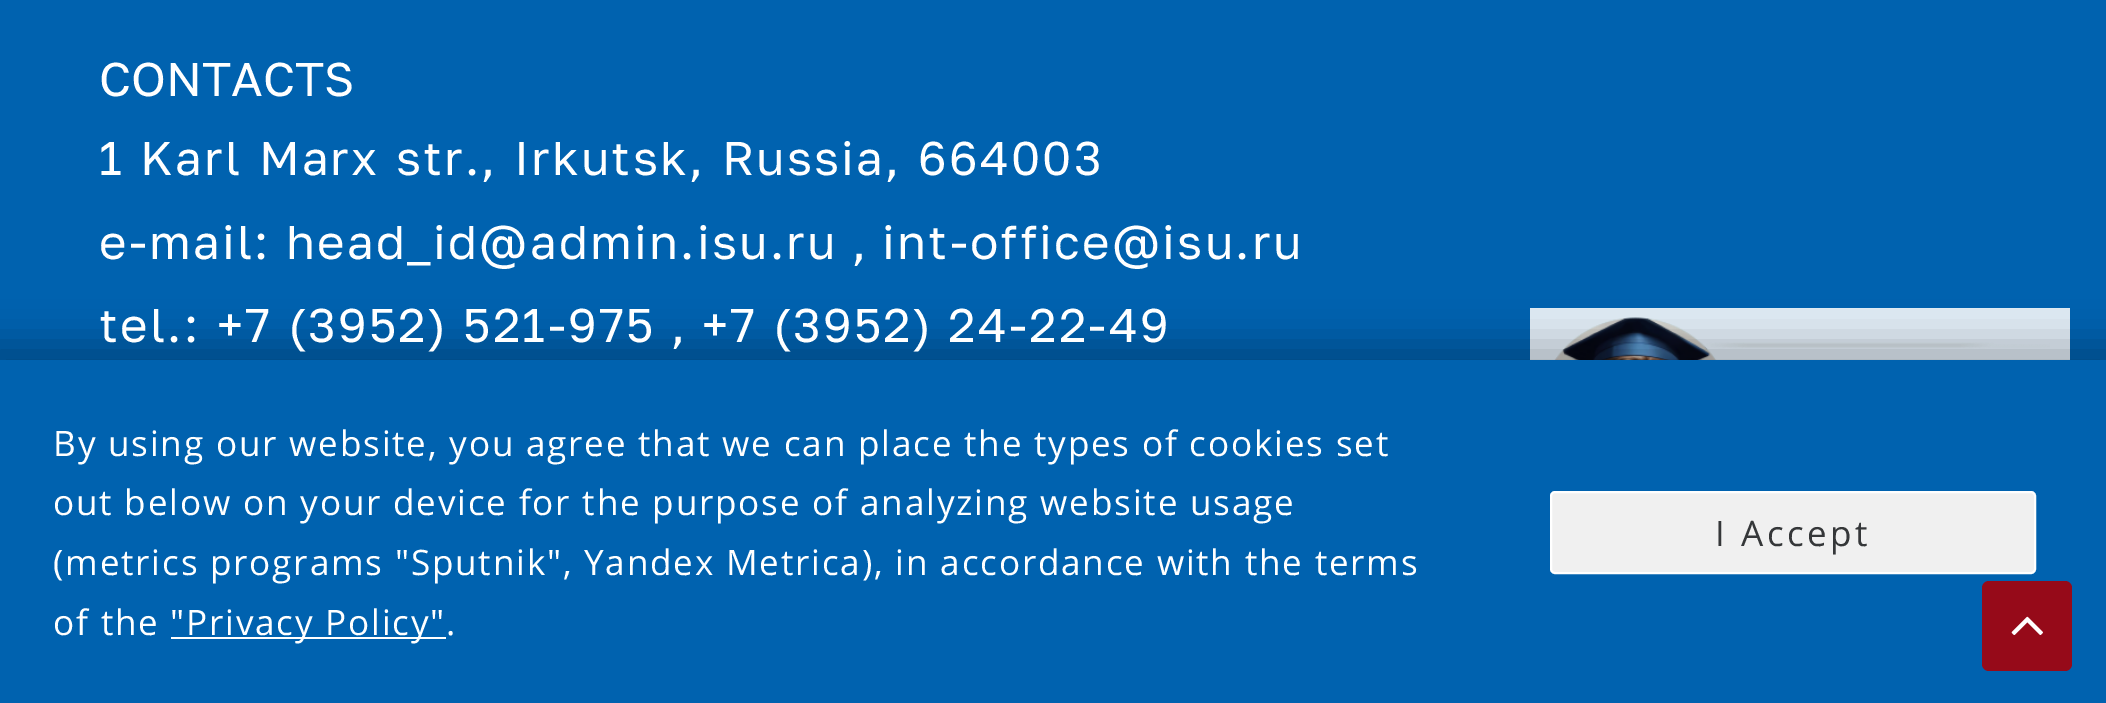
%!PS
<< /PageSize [2106 703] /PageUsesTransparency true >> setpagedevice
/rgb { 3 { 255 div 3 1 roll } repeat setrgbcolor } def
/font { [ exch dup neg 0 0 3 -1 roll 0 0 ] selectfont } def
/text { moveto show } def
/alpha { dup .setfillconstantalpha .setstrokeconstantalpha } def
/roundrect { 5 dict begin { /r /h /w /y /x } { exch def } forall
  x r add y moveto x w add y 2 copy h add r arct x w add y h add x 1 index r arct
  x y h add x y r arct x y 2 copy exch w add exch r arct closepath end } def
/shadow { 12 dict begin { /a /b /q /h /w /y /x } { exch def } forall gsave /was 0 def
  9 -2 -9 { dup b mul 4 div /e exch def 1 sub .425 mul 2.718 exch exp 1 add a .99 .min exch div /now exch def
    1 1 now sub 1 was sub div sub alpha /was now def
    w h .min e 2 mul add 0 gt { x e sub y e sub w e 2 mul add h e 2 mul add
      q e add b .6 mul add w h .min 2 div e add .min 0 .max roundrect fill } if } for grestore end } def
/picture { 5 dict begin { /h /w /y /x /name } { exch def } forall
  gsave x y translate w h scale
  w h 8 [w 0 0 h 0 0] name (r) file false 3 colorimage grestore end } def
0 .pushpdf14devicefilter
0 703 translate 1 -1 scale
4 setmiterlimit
0 98 175 rgb
0 0 2106 703 rectfill
224 236 245 rgb
1530 308 540 52 rectfill
(img_01.rgb) 1554 317 496 43 picture
0 0 0 rgb
-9 344 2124 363 0 20 0.25 shadow
0 98 175 rgb
0 360 2106 343 rectfill
255 255 255 rgb
171 637 275 2 rectfill
240 240 240 rgb
1551 492 484 81 4 roundrect gsave fill grestore
255 255 255 rgb
2 setlinewidth
stroke
150 10 25 rgb
1982 581 90 90 7 roundrect fill
(img_02.rgb) 2011 616 32 19 picture
/GolosText-Regular 47.25 font
255 255 255 rgb
(CONTACTS) 99 96 text
99 175 moveto 2.25 0 32 2.25 0 (1 Karl Marx str., Irkutsk, Russia, 664003) awidthshow
99 259 moveto 2.25 0 (e-mail:) ashow
286 259 moveto 2.25 0 (head_id@admin.isu.ru , int-office@isu.ru) ashow
99 342 moveto 2.25 0 (tel.:) ashow
217 342 moveto 1 0 32 2.25 0 (+7 \(3952\) 521-975 , +7 \(3952\) 24-22-49) awidthshow
/OpenSans-Regular 35.1 font
53 456 moveto 1.8 0 (By using our website, you agree that we can place the types of cookies set) ashow
53 515 moveto 1.8 0 (out below on your device for the purpose of analyzing website usage) ashow
53 575 moveto 1.8 0 (\(metrics programs "Sputnik", Yandex Metrica\), in accordance with the terms) ashow
53 635 moveto 1.8 0 (of the) ashow
170 635 moveto 1.8 0 ("Privacy Policy".) ashow
53 55 57 rgb
1715 546 moveto 3.5 0 (I Accept) ashow
.poppdf14devicefilter showpage
